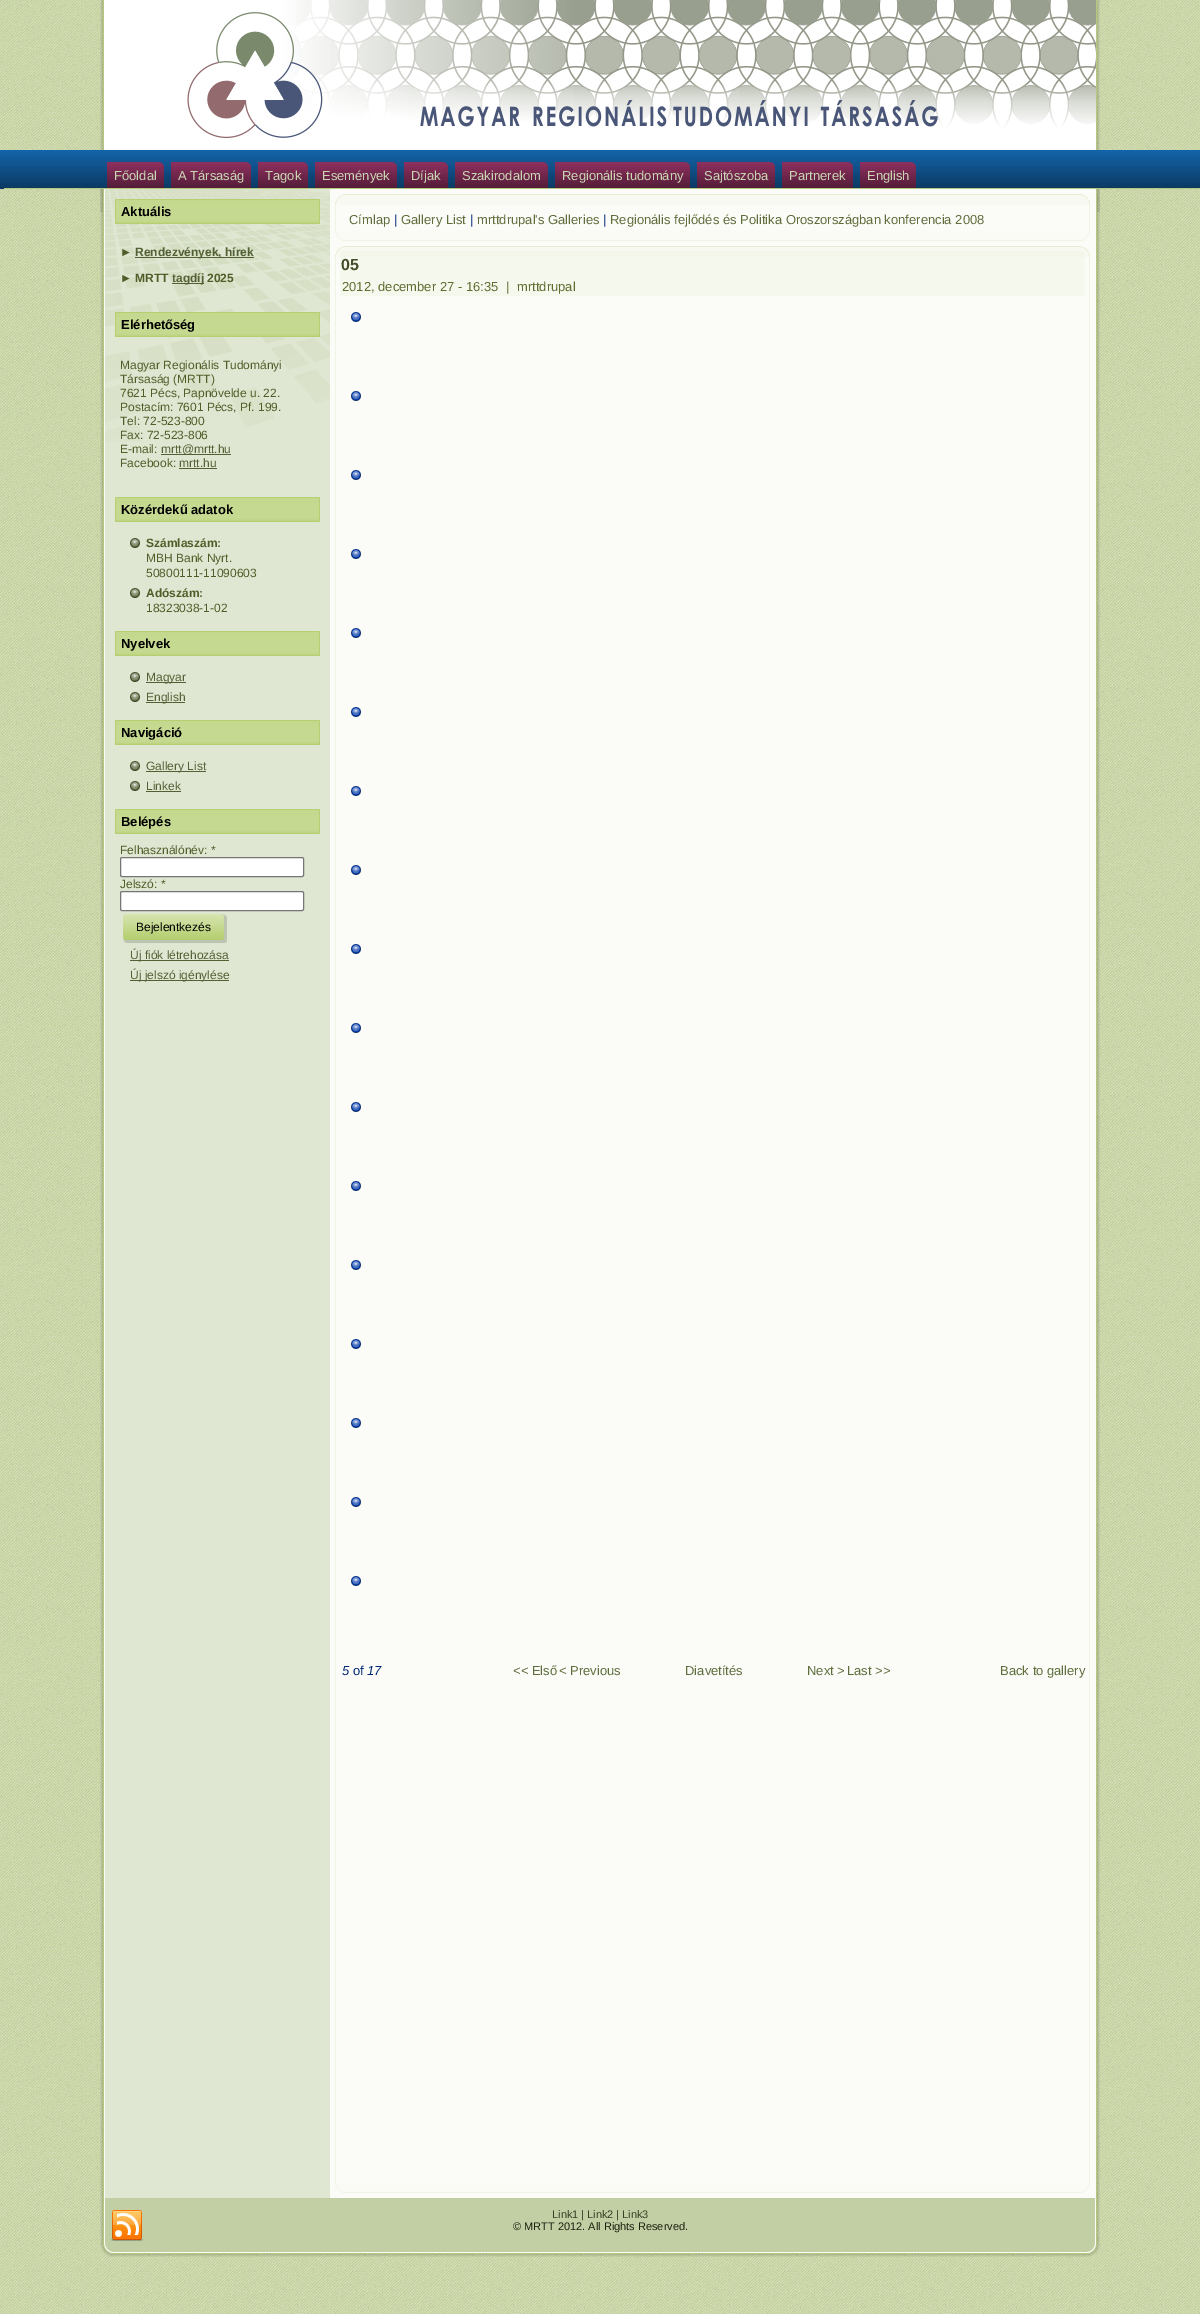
%!PS
<< /PageSize [1200 2314] /PageUsesTransparency true >> setpagedevice
/rgb { 3 { 255 div 3 1 roll } repeat setrgbcolor } def
/font { [ exch dup neg 0 0 3 -1 roll 0 0 ] selectfont } def
/text { moveto show } def
/alpha { dup .setfillconstantalpha .setstrokeconstantalpha } def
/roundrect { 5 dict begin { /r /h /w /y /x } { exch def } forall
  x r add y moveto x w add y 2 copy h add r arct x w add y h add x 1 index r arct
  x y h add x y r arct x y 2 copy exch w add exch r arct closepath end } def
/picture { 5 dict begin { /h /w /y /x /name } { exch def } forall
  gsave x y translate w h scale
  w h 8 [w 0 0 h 0 0] name (r) file false 3 colorimage grestore end } def
0 .pushpdf14devicefilter
0 2314 translate 1 -1 scale
4 setmiterlimit
255 255 255 rgb
0 0 1200 2314 rectfill
(img_01.rgb) 0 0 1200 2314 picture
(img_02.rgb) 100 0 1000 150 picture
(img_03.rgb) 104 0 992 150 picture
(img_04.rgb) 0 150 1200 39 picture
(img_05.rgb) 107 162 52 26 picture
(img_06.rgb) 159 162 5 26 picture
(img_07.rgb) 171 162 75 26 picture
(img_06.rgb) 246 162 5 26 picture
(img_08.rgb) 258 162 45 26 picture
(img_06.rgb) 303 162 5 26 picture
(img_09.rgb) 315 162 77 26 picture
(img_06.rgb) 392 162 5 26 picture
(img_10.rgb) 404 162 39 26 picture
(img_06.rgb) 443 162 5 26 picture
(img_11.rgb) 455 162 88 26 picture
(img_06.rgb) 543 162 5 26 picture
(img_12.rgb) 555 162 130 26 picture
(img_06.rgb) 685 162 5 26 picture
(img_13.rgb) 697 162 73 26 picture
(img_06.rgb) 770 162 5 26 picture
(img_14.rgb) 782 162 66 26 picture
(img_06.rgb) 848 162 5 26 picture
(img_15.rgb) 860 162 51 26 picture
(img_06.rgb) 911 162 5 26 picture
(img_16.rgb) 100 189 977 2068 picture
0.09 alpha
0 0 0 rgb
100 189 3 23 rectfill
1 alpha
(img_36.rgb) 1077 212 23 2022 picture
(img_17.rgb) 1077 189 23 2068 picture
0.09 alpha
1097 189 3 23 rectfill
1 alpha
(img_35.rgb) 100 212 977 2022 picture
223 230 209 rgb
105 442 225 1756 rectfill
(img_18.rgb) 105 189 225 253 picture
(img_19.rgb) 115 199 204 25 picture
(img_20.rgb) 319 199 1 25 picture
83 96 52 rgb
135 257 119 1 rectfill
172 283 32 1 rectfill
(img_21.rgb) 115 312 204 25 picture
(img_22.rgb) 319 312 1 25 picture
161 454 70 1 rectfill
179 468 38 1 rectfill
(img_23.rgb) 115 497 204 25 picture
(img_24.rgb) 319 497 1 25 picture
(img_25.rgb) 130 538 10 10 picture
(img_25.rgb) 130 588 10 10 picture
(img_23.rgb) 115 631 204 25 picture
(img_24.rgb) 319 631 1 25 picture
(img_25.rgb) 130 672 10 10 picture
146 682 40 1 rectfill
(img_25.rgb) 130 692 10 10 picture
146 702 39 1 rectfill
(img_23.rgb) 115 720 204 25 picture
(img_24.rgb) 319 720 1 25 picture
(img_25.rgb) 130 761 10 10 picture
146 771 60 1 rectfill
(img_25.rgb) 130 781 10 10 picture
146 791 35 1 rectfill
(img_23.rgb) 115 809 204 25 picture
(img_24.rgb) 319 809 1 25 picture
255 255 255 rgb
120.5 857.5 183 19 1.5 roundrect gsave fill grestore
118 118 118 rgb
stroke
255 255 255 rgb
120.5 891.5 183 19 1.5 roundrect gsave fill grestore
118 118 118 rgb
stroke
(img_26.rgb) 123 914 95 29 picture
(img_27.rgb) 218 914 9 29 picture
83 96 52 rgb
130 960 99 1 rectfill
130 980 99 1 rectfill
(img_28.rgb) 335 194 744 47 picture
(img_29.rgb) 335 194 744 11 picture
240 244 228 rgb
1089 205 1 25 rectfill
(img_30.rgb) 1079 194 11 47 picture
(img_31.rgb) 1079 194 11 11 picture
335 205 1 25 rectfill
(img_32.rgb) 335 246 744 1947 picture
(img_29.rgb) 335 246 744 11 picture
1089 257 1 1925 rectfill
(img_33.rgb) 1079 246 11 1947 picture
(img_31.rgb) 1079 246 11 11 picture
335 257 1 1925 rectfill
0.3 alpha
232 238 211 rgb
340 251 745 45 rectfill
1 alpha
(img_34.rgb) 351 312 10 10 picture
(img_34.rgb) 351 391 10 10 picture
(img_34.rgb) 351 470 10 10 picture
(img_34.rgb) 351 549 10 10 picture
(img_34.rgb) 351 628 10 10 picture
(img_34.rgb) 351 707 10 10 picture
(img_34.rgb) 351 786 10 10 picture
(img_34.rgb) 351 865 10 10 picture
(img_34.rgb) 351 944 10 10 picture
(img_34.rgb) 351 1023 10 10 picture
(img_34.rgb) 351 1102 10 10 picture
(img_34.rgb) 351 1181 10 10 picture
(img_34.rgb) 351 1260 10 10 picture
(img_34.rgb) 351 1339 10 10 picture
(img_34.rgb) 351 1418 10 10 picture
(img_34.rgb) 351 1497 10 10 picture
(img_34.rgb) 351 1576 10 10 picture
194 207 165 rgb
105 2198 990 45 rectfill
(img_37.rgb) 111 2210 32 31 picture
(img_38.rgb) 105 2243 981 9 picture
(img_39.rgb) 1086 2243 9 9 picture
/LiberationSans-Regular 13 font
203 214 179 rgb
(Főoldal) 114 180 text
(A Társaság) 178 180 text
(Tagok) 265 180 text
(Események) 322 180 text
(Díjak) 411 180 text
(Szakirodalom) 462 180 text
(Regionális tudomány) 562 180 text
(Sajtószoba) 704 180 text
(Partnerek) 789 180 text
(English) 867 180 text
/LiberationSans-Bold 13 font
0 0 0 rgb
(Aktuális) 121 216 text
/LiberationSans-Bold 12 font
80 93 40 rgb
(►) 120 256 text
83 96 52 rgb
(Rendezvények, hírek) 135 256 text
80 93 40 rgb
(► MRTT) 120 282 text
83 96 52 rgb
(tagdíj) 172 282 text
80 93 40 rgb
(2025) 207 282 text
/LiberationSans-Bold 13 font
0 0 0 rgb
(Elérhetőség) 121 329 text
/LiberationSans-Regular 12 font
80 93 40 rgb
(Magyar Regionális Tudományi) 120 369 text
(Társaság \(MRTT\)) 120 383 text
(7621 Pécs, Papnövelde u. 22.) 120 397 text
(Postacím: 7601 Pécs, Pf. 199.) 120 411 text
(Tel: 72-523-800) 120 425 text
(Fax: 72-523-806) 120 439 text
(E-mail:) 120 453 text
83 96 52 rgb
(mrtt@mrtt.hu) 161 453 text
80 93 40 rgb
(Facebook:) 120 467 text
83 96 52 rgb
(mrtt.hu) 179 467 text
/LiberationSans-Bold 13 font
0 0 0 rgb
(Közérdekű adatok) 121 514 text
/LiberationSans-Bold 12 font
80 93 40 rgb
(Számlaszám:) 146 547 text
/LiberationSans-Regular 12 font
(MBH Bank Nyrt.) 146 562 text
(50800111-11090603) 146 577 text
/LiberationSans-Bold 12 font
(Adószám:) 146 597 text
/LiberationSans-Regular 12 font
(18323038-1-02) 146 612 text
/LiberationSans-Bold 13 font
0 0 0 rgb
(Nyelvek) 121 648 text
/LiberationSans-Regular 12 font
83 96 52 rgb
(Magyar) 146 681 text
(English) 146 701 text
/LiberationSans-Bold 13 font
0 0 0 rgb
(Navigáció) 121 737 text
/LiberationSans-Regular 12 font
83 96 52 rgb
(Gallery List) 146 770 text
(Linkek) 146 790 text
/LiberationSans-Bold 13 font
0 0 0 rgb
(Belépés) 121 826 text
/LiberationSans-Regular 12 font
80 93 40 rgb
(Felhasználónév: *) 120 854 text
(Jelszó: *) 120 888 text
0 0 0 rgb
(Bejelentkezés) 136 931 text
83 96 52 rgb
(Új fiók létrehozása) 130 959 text
(Új jelszó igénylése) 130 979 text
/LiberationSans-Regular 13 font
94 109 59 rgb
(Címlap) 349 224 text
0 39 117 rgb
(|) 394 224 text
94 109 59 rgb
(Gallery List) 401 224 text
0 39 117 rgb
(|) 470 224 text
94 109 59 rgb
(mrttdrupal's Galleries) 477 224 text
0 39 117 rgb
(|) 603 224 text
94 109 59 rgb
(Regionális fejlődés és Politika Oroszországban konferencia 2008) 610 224 text
/LiberationSans-Bold 16 font
66 76 41 rgb
(05) 341 270 text
/LiberationSans-Regular 13 font
92 107 46 rgb
(2012, december 27 - 16:35) 342 291 text
(|) 506 291 text
(mrttdrupal) 517 291 text
/LiberationSans-Italic 13 font
0 39 117 rgb
(5) 342 1675 text
/LiberationSans-Regular 13 font
(of) 353 1675 text
/LiberationSans-Italic 13 font
(17) 367 1675 text
/LiberationSans-Regular 13 font
94 109 59 rgb
(<< Első) 513 1675 text
(< Previous) 559 1675 text
(Diavetítés) 685 1675 text
(Next >) 807 1675 text
(Last >>) 847 1675 text
(Back to gallery) 1000 1675 text
/LiberationSans-Regular 11 font
54 63 34 rgb
(Link1) 552 2218 text
28 32 14 rgb
(|) 581 2218 text
54 63 34 rgb
(Link2) 587 2218 text
28 32 14 rgb
(|) 616 2218 text
54 63 34 rgb
(Link3) 622 2218 text
28 32 14 rgb
(© MRTT 2012. All Rights Reserved.) 513 2230 text
.poppdf14devicefilter showpage
